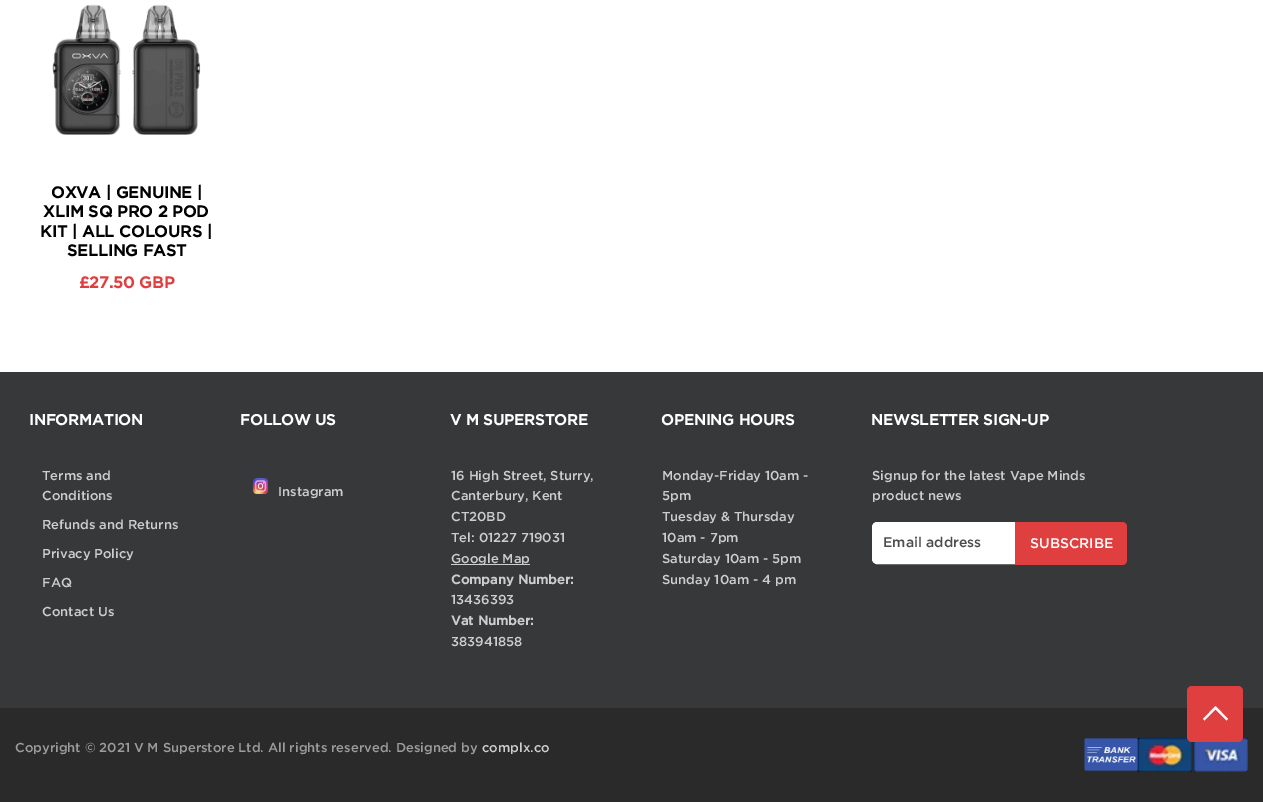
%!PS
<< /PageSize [1263 802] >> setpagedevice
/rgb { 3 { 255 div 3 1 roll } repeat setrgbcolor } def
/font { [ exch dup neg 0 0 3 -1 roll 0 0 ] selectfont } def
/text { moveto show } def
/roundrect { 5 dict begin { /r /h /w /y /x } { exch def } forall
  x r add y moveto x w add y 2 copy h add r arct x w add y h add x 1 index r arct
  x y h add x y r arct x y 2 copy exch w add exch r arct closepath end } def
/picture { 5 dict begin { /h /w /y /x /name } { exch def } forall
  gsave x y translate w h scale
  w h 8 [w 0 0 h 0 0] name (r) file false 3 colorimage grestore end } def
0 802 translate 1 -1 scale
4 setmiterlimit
255 255 255 rgb
0 0 1263 802 rectfill
(img_01.rgb) 52 4 149 131 picture
55 56 58 rgb
0 372 1263 336 rectfill
(img_02.rgb) 253 478 15 16 picture
205 205 207 rgb
451 564 79 1 rectfill
255 255 255 rgb
877 522.5 moveto 138.5 0 rlineto 0 41 rlineto -138.5 0 rlineto -2.5 0 -4.5 -2 -4.5 -4.5 rcurveto 0 -32 rlineto 0 -2.5 2 -4.5 4.5 -4.5 rcurveto closepath gsave fill grestore
stroke
224 63 64 rgb
1015 522 moveto 107 0 rlineto 3 0 5 2 5 5 rcurveto 0 33 rlineto 0 3 -2 5 -5 5 rcurveto -107 0 rlineto closepath fill
42 42 42 rgb
0 708 1263 94 rectfill
(img_03.rgb) 1084 738 54 33 picture
(img_04.rgb) 1138 738 54 34 picture
(img_05.rgb) 1194 738 54 34 picture
224 63 64 rgb
1187 686 56 56 5 roundrect fill
255 255 255 rgb
1203 719 moveto 1.5 1.5 rlineto 11 -11 rlineto 11 11 rlineto 1.5 -1.5 rlineto -12.5 -13 rlineto closepath fill
/Gotham-Bold 16 font
0 0 0 rgb
(OXVA | GENUINE |) 51 198 text
(XLIM SQ PRO 2 POD) 43 217 text
(KIT | ALL COLOURS |) 40 237 text
(SELLING FAST) 67 256 text
224 63 64 rgb
(£27.50 GBP) 79 288 text
/Gotham-Bold 15 font
255 255 255 rgb
(INFORMATION) 29 425 text
/Gotham-Medium 13 font
205 205 207 rgb
(Terms and) 42 480 text
(Conditions) 42 500 text
(Refunds and Returns) 42 529 text
(Privacy Policy) 42 558 text
(FAQ) 42 587 text
(Contact Us) 42 616 text
/Gotham-Bold 15 font
255 255 255 rgb
(FOLLOW US) 240 425 text
/Gotham-Medium 13 font
205 205 207 rgb
(Instagram) 278 496 text
/Gotham-Bold 15 font
255 255 255 rgb
(V M SUPERSTORE) 450 425 text
/Gotham-Medium 13 font
205 205 207 rgb
(16 High Street, Sturry,) 451 480 text
(Canterbury, Kent) 451 500 text
(CT20BD) 451 521 text
(Tel: 01227 719031) 451 542 text
(Google Map) 451 563 text
/Gotham-Bold 13 font
(Company Number:) 451 584 text
/Gotham-Medium 13 font
(13436393) 451 604 text
/Gotham-Bold 13 font
(Vat Number:) 451 625 text
/Gotham-Medium 13 font
(383941858) 451 646 text
/Gotham-Bold 15 font
255 255 255 rgb
(OPENING HOURS) 661 425 text
/Gotham-Medium 13 font
205 205 207 rgb
(Monday-Friday 10am -) 662 480 text
(5pm) 662 500 text
(Tuesday & Thursday) 662 521 text
(10am - 7pm) 662 542 text
(Saturday 10am - 5pm) 662 563 text
(Sunday 10am - 4 pm) 662 584 text
/Gotham-Bold 15 font
255 255 255 rgb
(NEWSLETTER SIGN-UP) 871 425 text
/Gotham-Medium 13 font
205 205 207 rgb
(Signup for the latest Vape Minds) 872 480 text
(product news) 872 500 text
/Gotham-Medium 14 font
77 77 77 rgb
(Email address) 883 547 text
255 255 255 rgb
(SUBSCRIBE) 1030 548 text
/Gotham-Medium 13 font
156 156 156 rgb
(Copyright © 2021 V M Superstore Ltd. All rights reserved. Designed by) 15 752 text
205 205 207 rgb
(complx.co) 482 752 text
showpage
